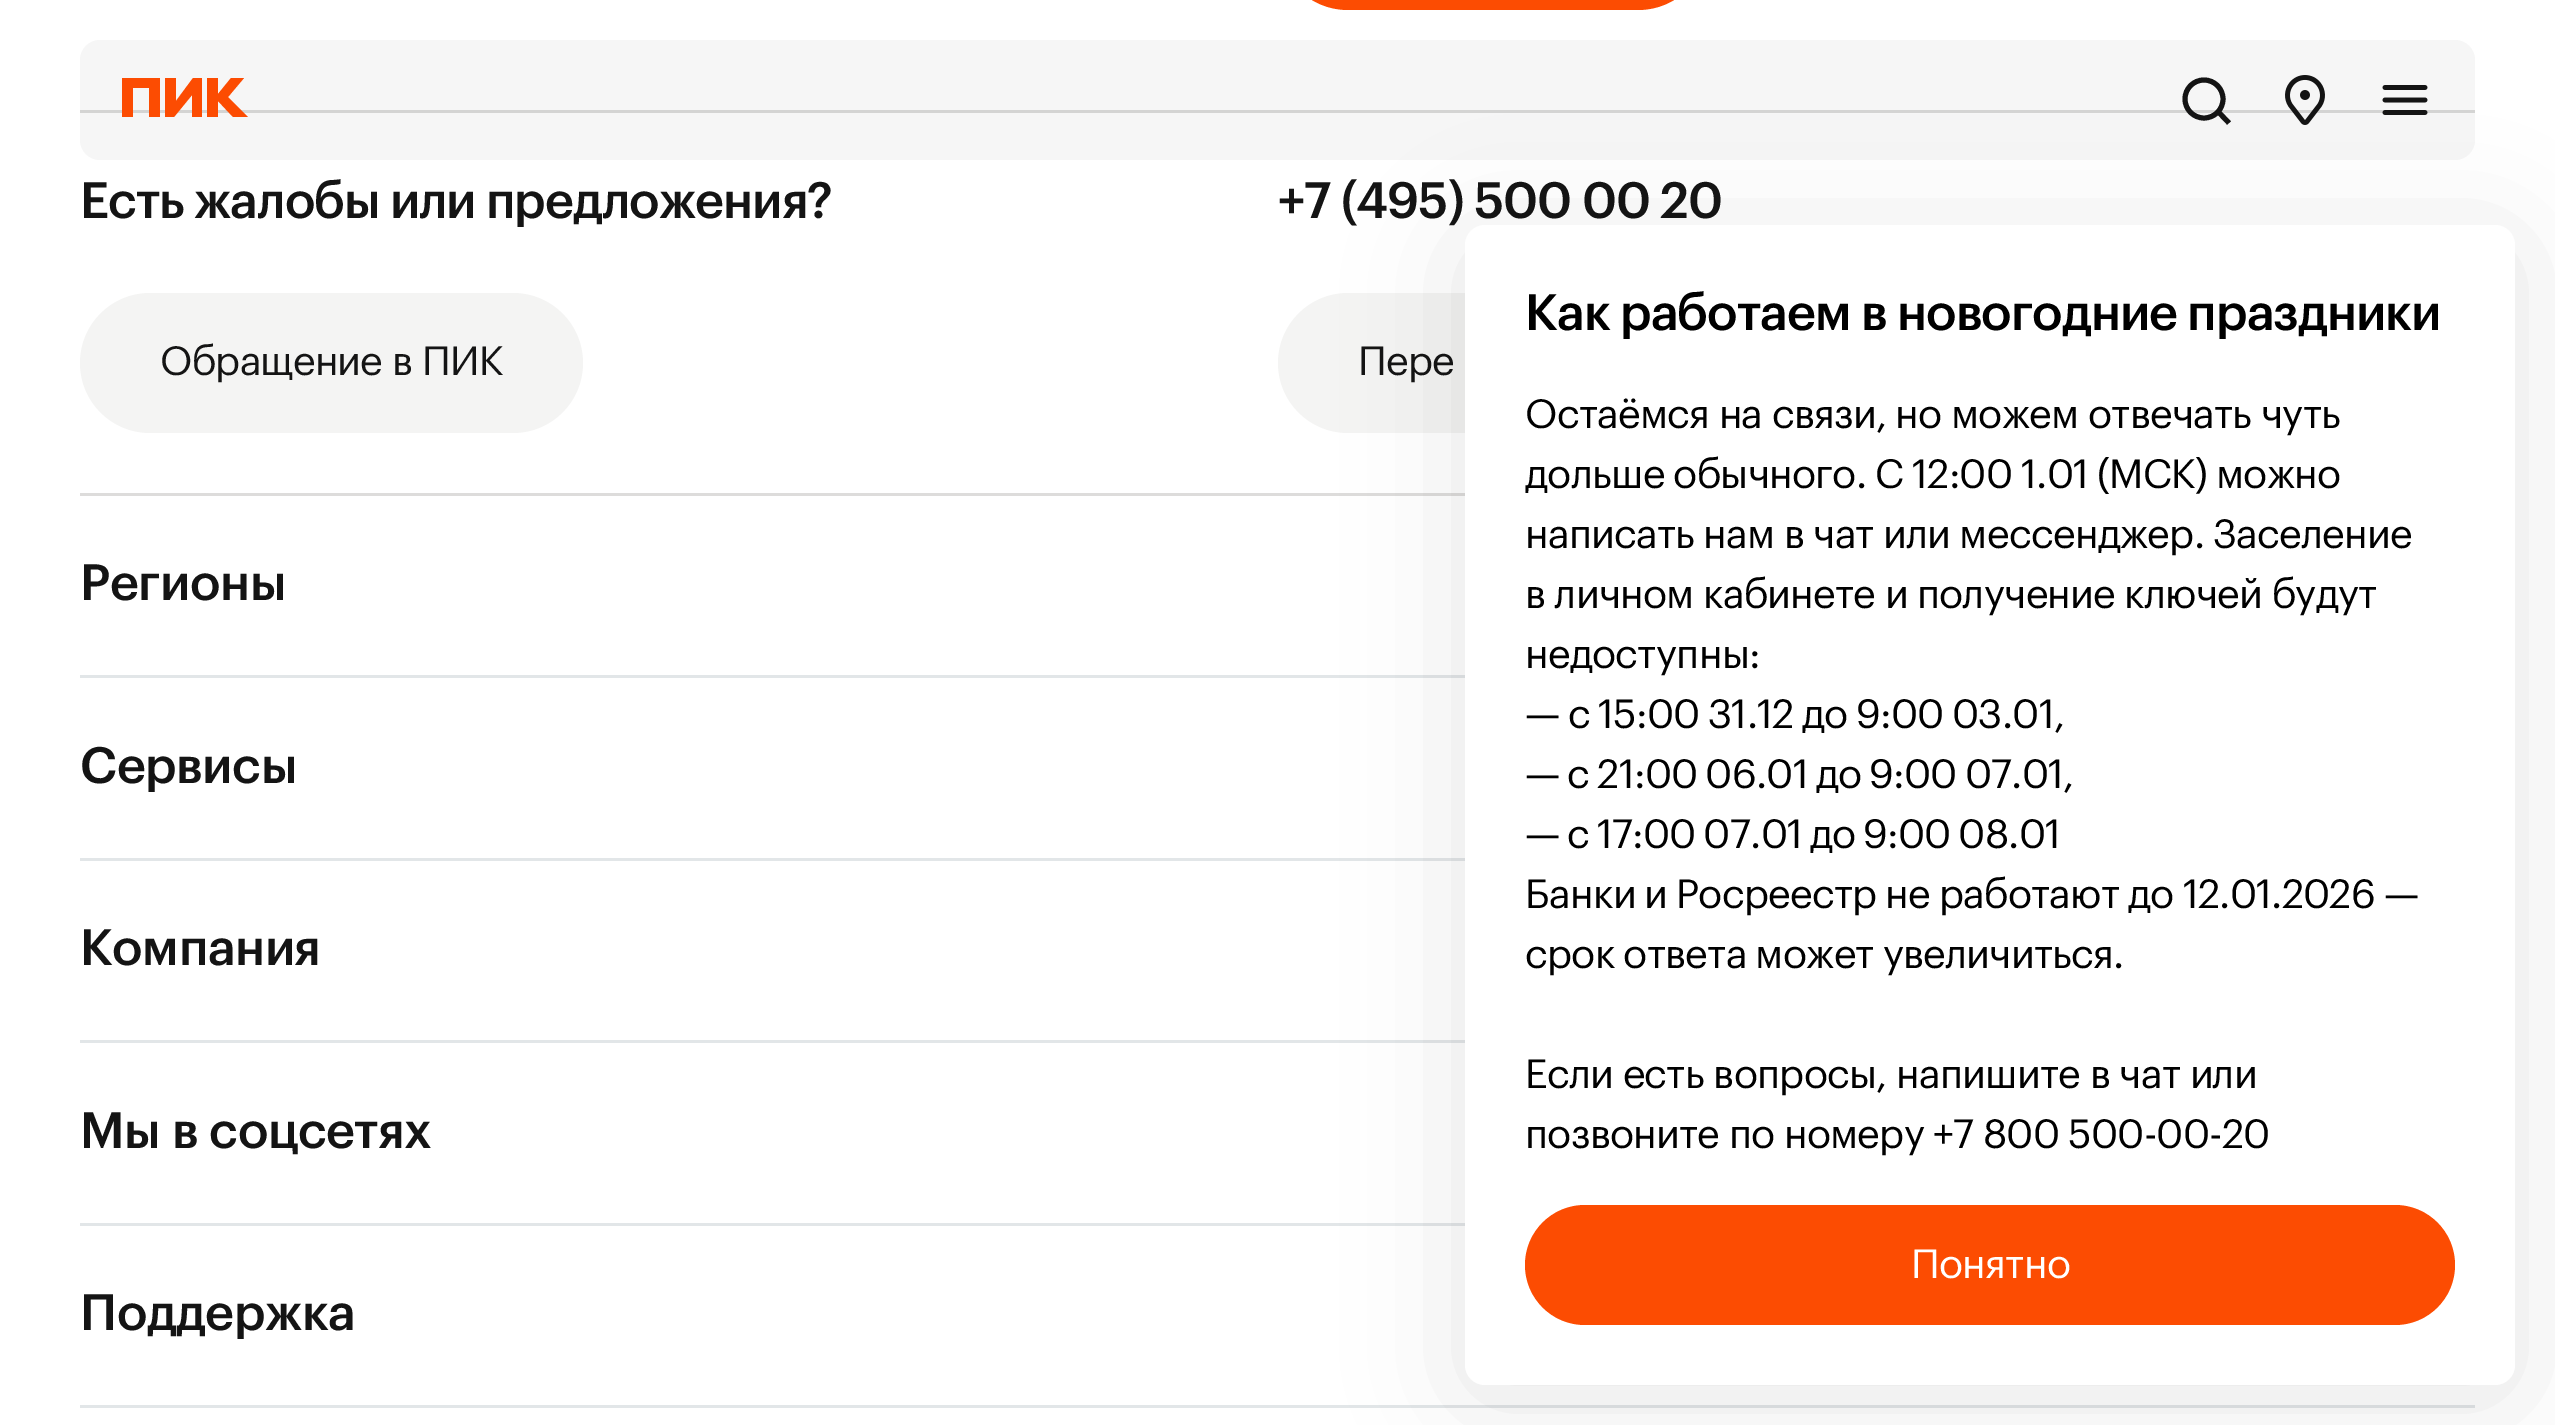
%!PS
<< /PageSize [2555 1425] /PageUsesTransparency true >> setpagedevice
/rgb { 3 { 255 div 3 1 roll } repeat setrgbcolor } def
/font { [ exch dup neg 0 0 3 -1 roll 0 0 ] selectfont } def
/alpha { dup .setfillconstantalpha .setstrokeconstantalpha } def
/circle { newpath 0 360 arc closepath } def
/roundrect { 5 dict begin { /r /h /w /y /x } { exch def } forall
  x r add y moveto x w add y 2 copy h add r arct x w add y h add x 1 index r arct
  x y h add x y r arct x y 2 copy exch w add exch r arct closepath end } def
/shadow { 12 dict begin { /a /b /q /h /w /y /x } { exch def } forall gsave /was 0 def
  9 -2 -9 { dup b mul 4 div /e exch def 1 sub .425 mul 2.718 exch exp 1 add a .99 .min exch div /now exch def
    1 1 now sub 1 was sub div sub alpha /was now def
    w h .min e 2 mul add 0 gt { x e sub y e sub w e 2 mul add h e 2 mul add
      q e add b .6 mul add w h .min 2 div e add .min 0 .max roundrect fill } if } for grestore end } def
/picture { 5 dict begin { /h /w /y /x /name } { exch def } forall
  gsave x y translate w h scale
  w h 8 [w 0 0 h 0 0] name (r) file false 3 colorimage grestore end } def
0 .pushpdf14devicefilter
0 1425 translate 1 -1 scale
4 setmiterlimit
255 255 255 rgb
0 0 2555 1425 rectfill
199 198 197 rgb
80 110 2395 3 rectfill
0.4 alpha
232 232 232 rgb
80 40 2395 120 20 roundrect fill
1 alpha
252 76 2 rgb
122 117 moveto 0 -39 rlineto 38 0 rlineto 0 39 rlineto -11 0 rlineto 0 -29 rlineto -16 0 rlineto 0 29 rlineto closepath 192 95 moveto -18 22 rlineto -9 0 rlineto 0 -39 rlineto 11 0 rlineto 0 23 rlineto 17 -23 rlineto 9 0 rlineto 0 39 rlineto -10 0 rlineto closepath 218 101 moveto 0 16 rlineto -11 0 rlineto 0 -39 rlineto 11 0 rlineto 0 16 rlineto 13 -16 rlineto 13 0 rlineto -16 19 rlineto 20 20 rlineto -15 0 rlineto closepath fill
20 20 20 rgb
5 setlinewidth
2204 99 19 circle stroke
2217 110.5 moveto 12 12.5 rlineto stroke
(img_01.rgb) 2285 75 40 50 picture
(img_02.rgb) 2382 85 46 30 picture
221 220 219 rgb
80 493 1385 3 rectfill
252 76 2 rgb
1278 -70 430 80 70 roundrect fill
244 244 243 rgb
80 293 503 140 70 roundrect fill
1278 293 485 140 70 roundrect fill
226 230 232 rgb
80 675 1385 3 rectfill
80 858 1385 3 rectfill
80 1040 1385 3 rectfill
80 1223 1385 3 rectfill
80 1405 2395 3 rectfill
0 0 0 rgb
1465 240 1050 1160 20 56 0.1 shadow
/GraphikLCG-Medium 50 font
20 20 20 rgb
80 218 moveto -1 0 32 -1 0 (Есть жалобы или предложения?) awidthshow
/GraphikLCG-Regular 40 font
160 375 moveto -0.8 0 (Обращение в ПИК) ashow
/GraphikLCG-Medium 50 font
1278 218 moveto -0.5 0 32 -1 0 (+7 \(495\) 500 00 20) awidthshow
/GraphikLCG-Regular 40 font
1358 375 moveto -1 0 32 -0.8 0 (Пере) awidthshow
/GraphikLCG-Medium 50 font
80 600 moveto -0.5 0 (Регионы) ashow
80 783 moveto -0.5 0 (Сервисы) ashow
80 965 moveto -0.5 0 (Компания) ashow
80 1148 moveto -0.5 0 (Мы в соцсетях) ashow
80 1330 moveto -0.5 0 (Поддержка) ashow
255 255 255 rgb
1465 225 1050 1160 20 roundrect fill
0 0 0 rgb
1525 330 moveto -0.5 0 32 -1 0 (Как работаем в новогодние праздники) awidthshow
/GraphikLCG-Regular 40 font
1525 428 moveto -0.5 0 32 -0.8 0 (Остаёмся на связи, но можем отвечать чуть) awidthshow
1525 488 moveto -1 0 32 -0.8 0 (дольше обычного. С 12:00 1.01 \(МСК\) можно) awidthshow
1525 548 moveto -0.5 0 32 -0.8 0 (написать нам в чат или мессенджер. Заселение) awidthshow
1525 608 moveto -0.5 0 32 -0.8 0 (в личном кабинете и получение ключей будут) awidthshow
1525 668 moveto -0.8 0 (недоступны:) ashow
1525 728 moveto -1.5 0 32 -0.8 0 (— с 15:00 31.12 до 9:00 03.01,) awidthshow
1525 788 moveto -2 0 32 -0.8 0 (— с 21:00 06.01 до 9:00 07.01,) awidthshow
1525 848 moveto -2.25 0 32 -0.8 0 (— с 17:00 07.01 до 9:00 08.01) awidthshow
1525 908 moveto -1 0 32 -0.8 0 (Банки и Росреестр не работают до 12.01.2026 —) awidthshow
1525 968 moveto -1 0 32 -0.8 0 (срок ответа может увеличиться.) awidthshow
1525 1088 moveto -0.25 0 32 -0.8 0 (Если есть вопросы, напишите в чат или) awidthshow
1525 1148 moveto -0.5 0 32 -0.8 0 (позвоните по номеру +7 800 500-00-20) awidthshow
252 76 2 rgb
1525 1205 930 120 60 roundrect fill
255 255 255 rgb
1911 1278 moveto -0.8 0 (Понятно) ashow
.poppdf14devicefilter showpage
